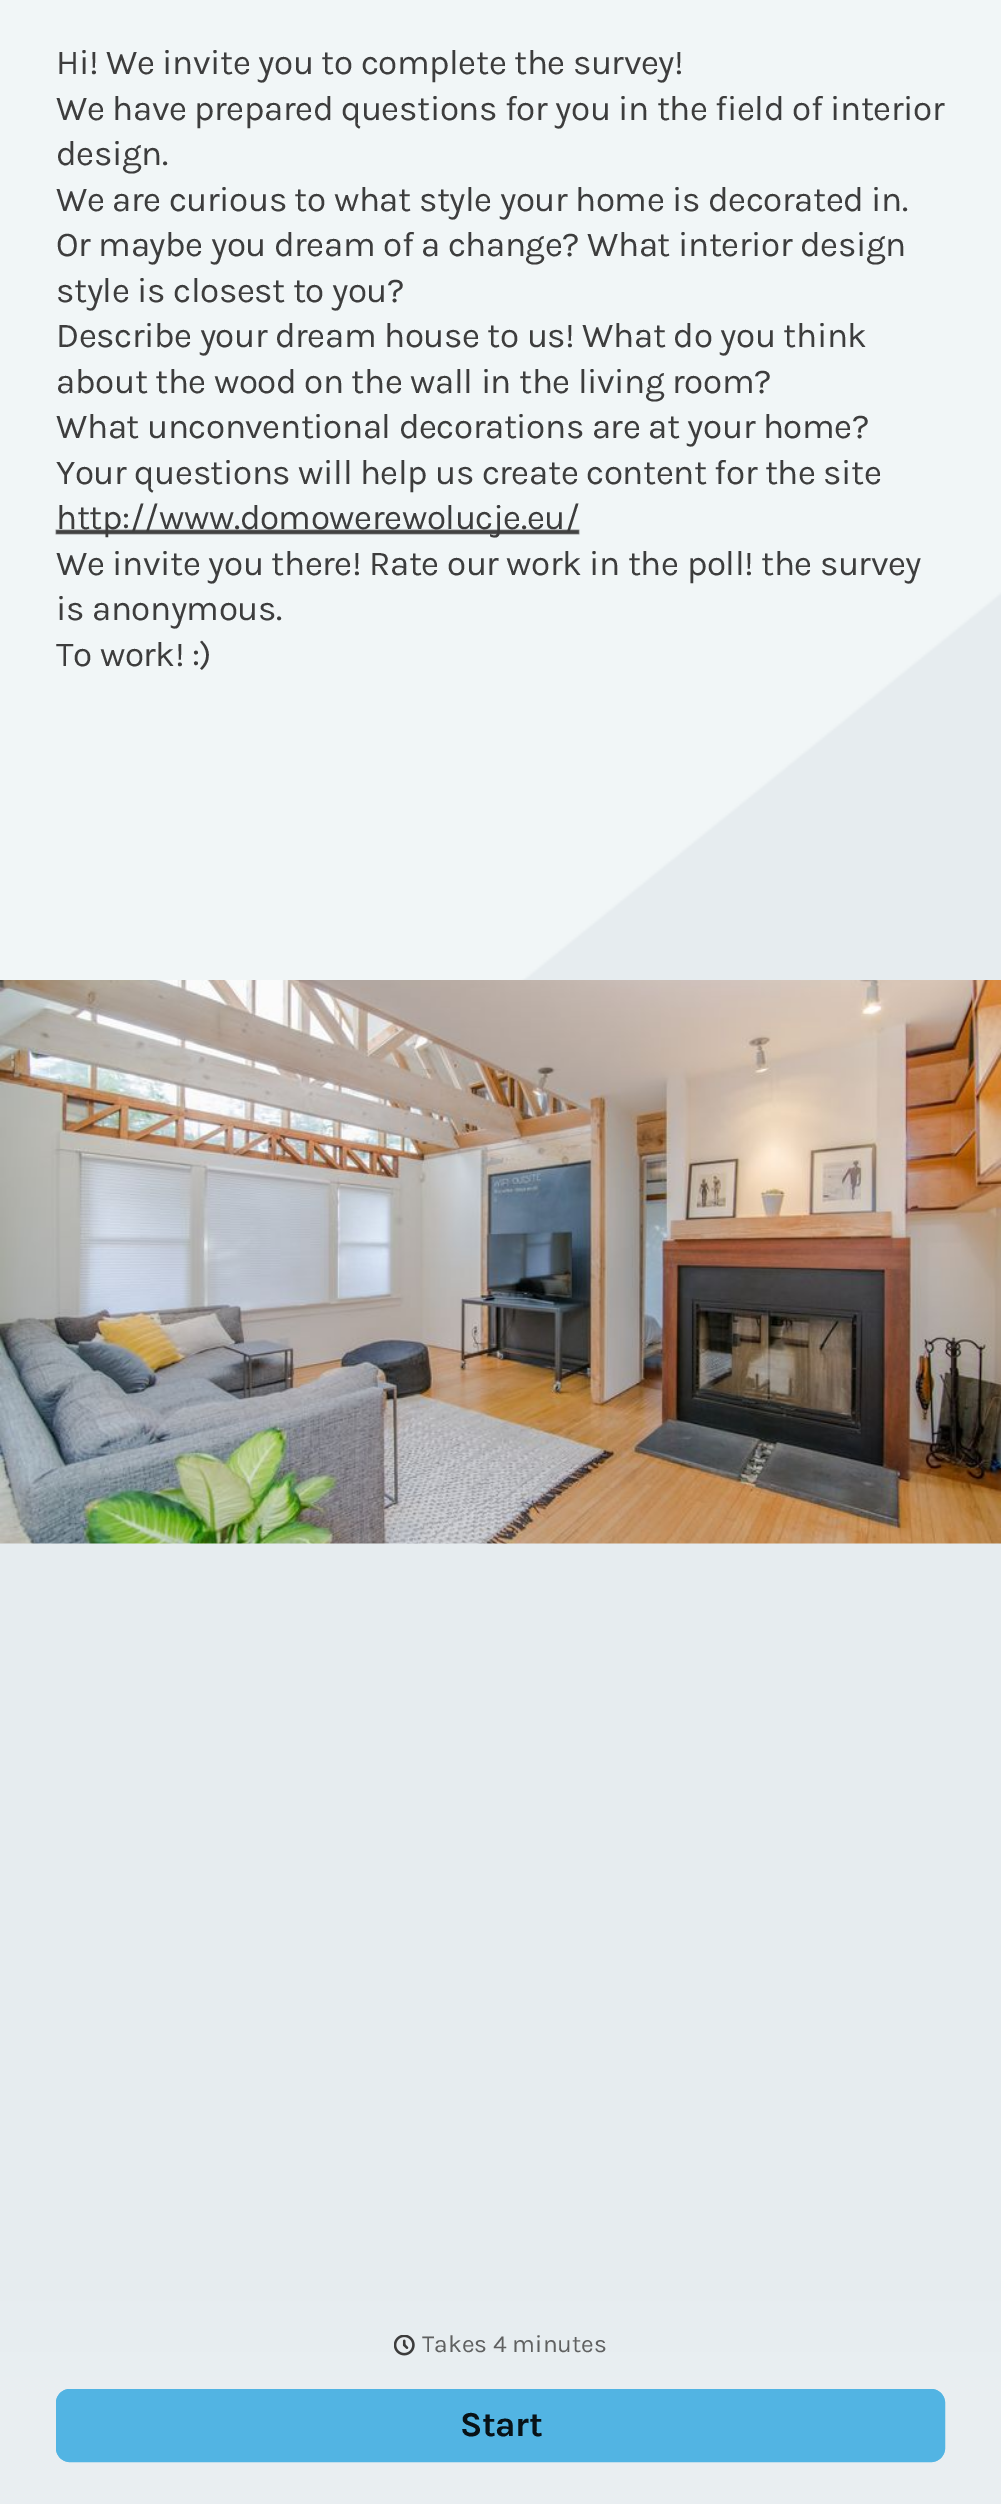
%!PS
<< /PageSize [1001 2504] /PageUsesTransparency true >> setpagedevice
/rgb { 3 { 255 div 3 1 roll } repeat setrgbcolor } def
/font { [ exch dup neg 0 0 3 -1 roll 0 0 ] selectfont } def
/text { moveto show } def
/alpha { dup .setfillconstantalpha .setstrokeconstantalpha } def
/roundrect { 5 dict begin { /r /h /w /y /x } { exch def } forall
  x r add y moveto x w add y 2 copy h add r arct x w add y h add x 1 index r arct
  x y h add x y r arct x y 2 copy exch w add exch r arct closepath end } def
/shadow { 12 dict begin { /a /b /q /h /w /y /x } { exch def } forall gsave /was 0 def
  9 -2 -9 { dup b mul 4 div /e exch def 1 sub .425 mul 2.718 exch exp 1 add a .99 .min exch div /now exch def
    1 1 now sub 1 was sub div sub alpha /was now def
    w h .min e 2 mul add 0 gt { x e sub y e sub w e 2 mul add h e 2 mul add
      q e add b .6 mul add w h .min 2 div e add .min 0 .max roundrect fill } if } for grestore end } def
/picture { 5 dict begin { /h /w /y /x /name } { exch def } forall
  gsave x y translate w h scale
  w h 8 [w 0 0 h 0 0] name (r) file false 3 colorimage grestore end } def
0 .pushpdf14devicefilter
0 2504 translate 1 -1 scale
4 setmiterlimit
255 255 255 rgb
0 0 1001 2504 rectfill
(img_01.rgb) 0 0 1001 2301 picture
61 61 61 rgb
56 530 523 4 0 0.5 1 shadow
(img_02.rgb) 0 980 1001 564 picture
gsave 0 2301 moveto 1001 0 rlineto 0 203 rlineto -1001 0 rlineto closepath clip newpath
<< /ShadingType 2 /ColorSpace /DeviceRGB /Coords [501 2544 501 2301] /Extend [true true] /Function << /FunctionType 3 /Domain [0 1] /Functions [<< /FunctionType 2 /Domain [0 1] /C0 [0.914 0.933 0.945] /C1 [0.914 0.933 0.945] /N 1 >> << /FunctionType 2 /Domain [0 1] /C0 [0.914 0.933 0.945] /C1 [0.906 0.929 0.941] /N 1 >>] /Bounds [0.6] /Encode [0 1 0 1] >> >> shfill grestore
(img_03.rgb) 394 2335 21 21 picture
82 180 227 rgb
2 setlinewidth
57 2390 887 71 13 roundrect stroke
56 2389 889 73 14 roundrect fill
/Karla-Regular 35 font
61 61 61 rgb
56 74 moveto -0.45 0 (Hi! We invite you to complete the survey!) ashow
56 120 moveto -0.45 0 (We have prepared questions for you in the field of interior) ashow
56 165 moveto -0.45 0 (design.) ashow
56 211 moveto -0.45 0 (We are curious to what style your home is decorated in.) ashow
56 256 moveto -0.45 0 (Or maybe you dream of a change? What interior design) ashow
56 302 moveto -0.45 0 (style is closest to you?) ashow
56 347 moveto -0.45 0 (Describe your dream house to us! What do you think) ashow
56 393 moveto -0.45 0 (about the wood on the wall in the living room?) ashow
56 438 moveto -0.45 0 (What unconventional decorations are at your home?) ashow
56 484 moveto -0.45 0 (Your questions will help us create content for the site) ashow
56 529 moveto -0.45 0 (http://www.domowerewolucje.eu/) ashow
56 575 moveto -0.45 0 (We invite you there! Rate our work in the poll! the survey) ashow
56 620 moveto -0.45 0 (is anonymous.) ashow
56 666 moveto -0.45 0 (To work! :\)) ashow
/Karla-Regular 24.5 font
95 96 96 rgb
(Takes 4 minutes) 422 2352 text
/Karla-Bold 35 font
8 18 23 rgb
460 2436 moveto -0.45 0 (Start) ashow
.poppdf14devicefilter showpage
